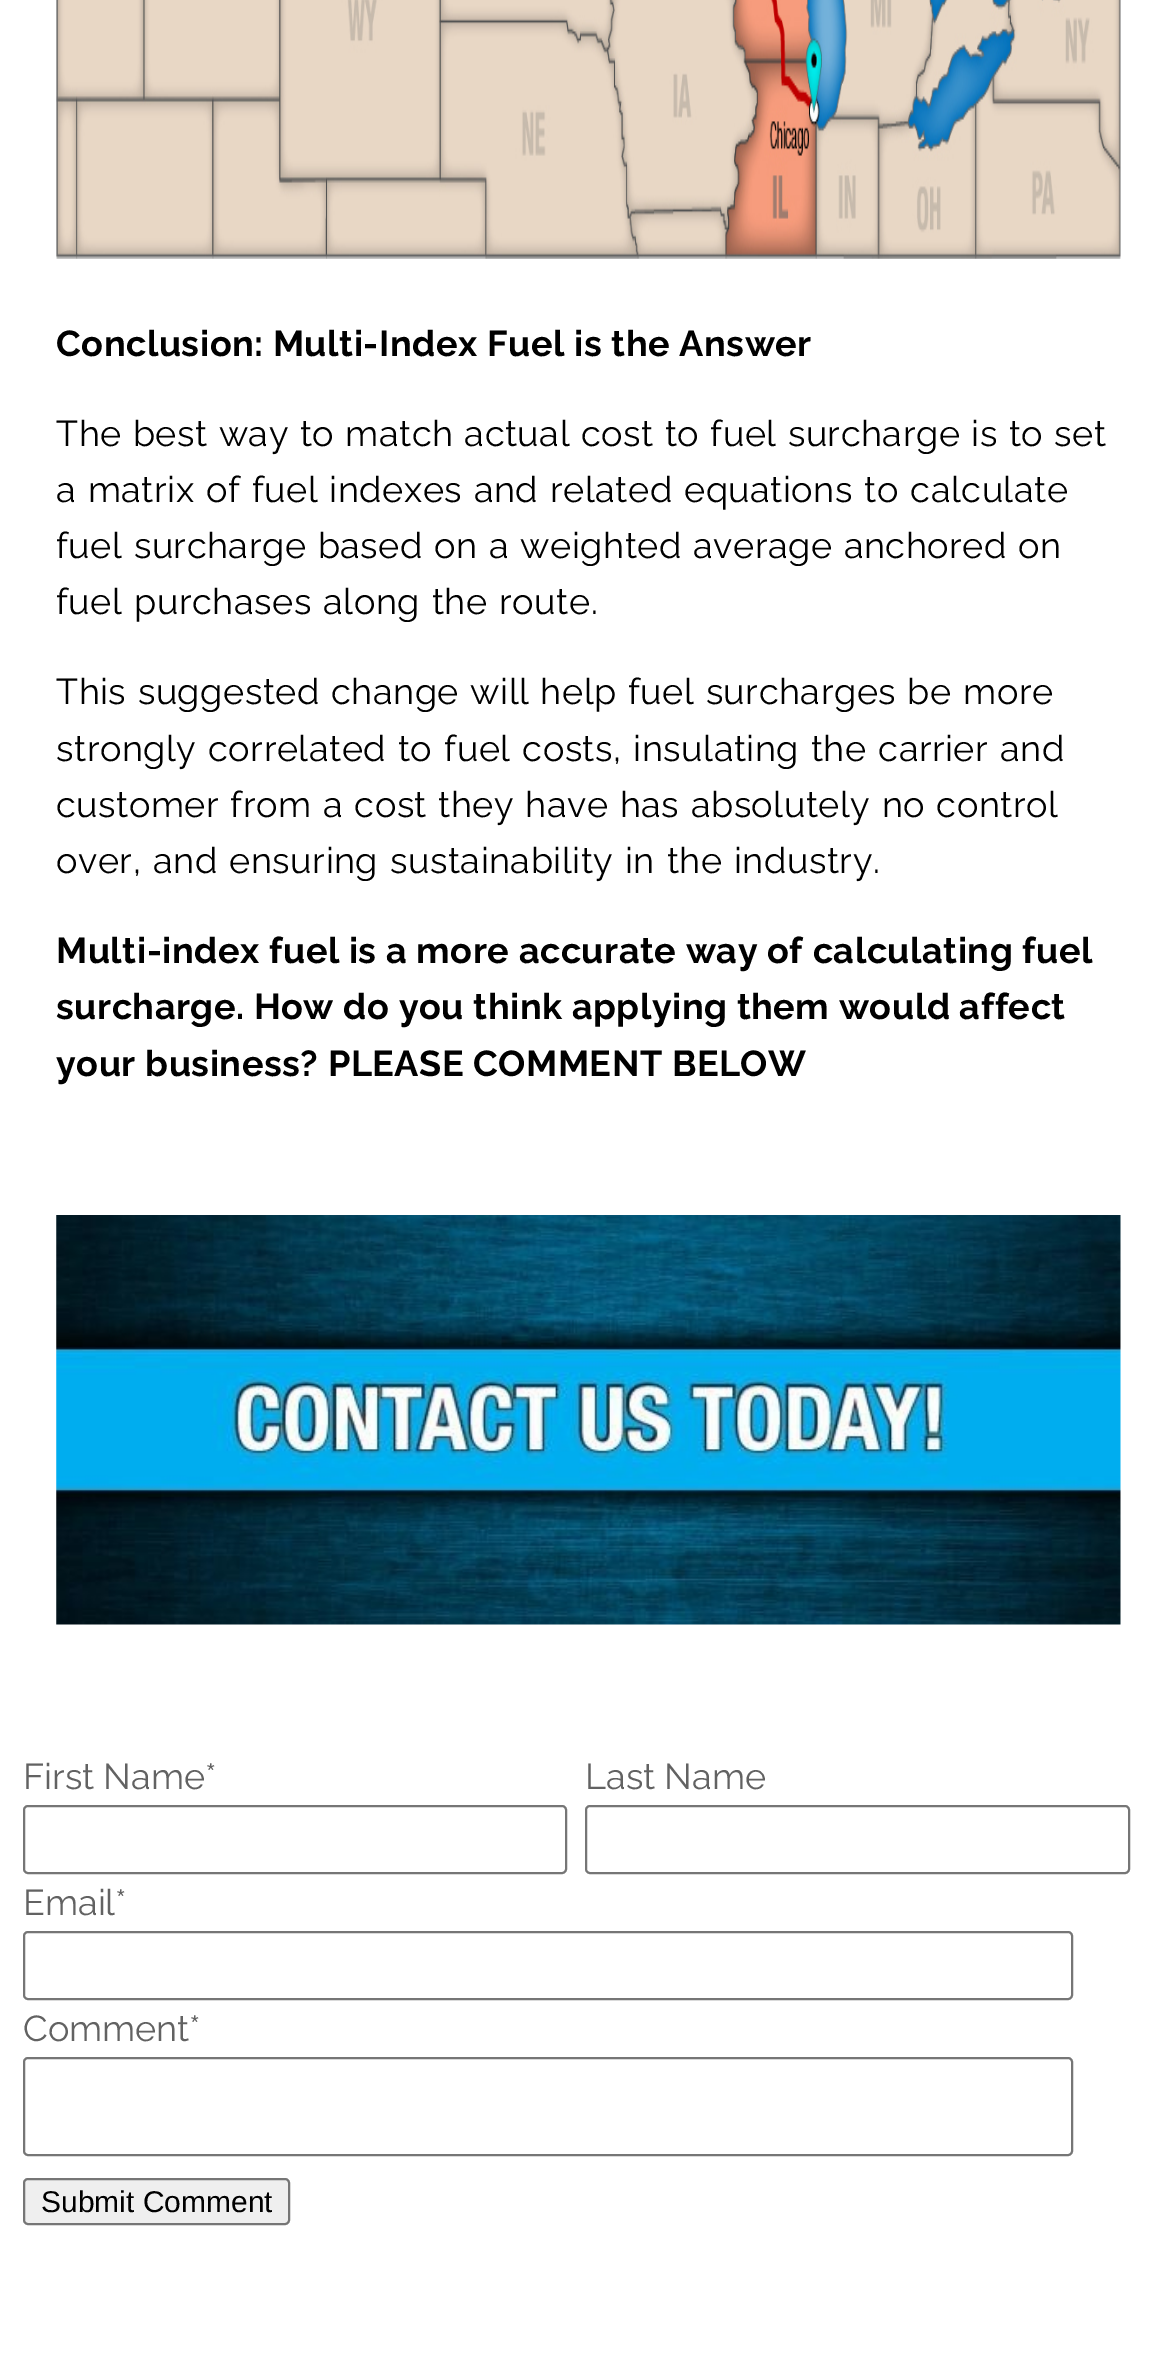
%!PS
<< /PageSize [1175 2360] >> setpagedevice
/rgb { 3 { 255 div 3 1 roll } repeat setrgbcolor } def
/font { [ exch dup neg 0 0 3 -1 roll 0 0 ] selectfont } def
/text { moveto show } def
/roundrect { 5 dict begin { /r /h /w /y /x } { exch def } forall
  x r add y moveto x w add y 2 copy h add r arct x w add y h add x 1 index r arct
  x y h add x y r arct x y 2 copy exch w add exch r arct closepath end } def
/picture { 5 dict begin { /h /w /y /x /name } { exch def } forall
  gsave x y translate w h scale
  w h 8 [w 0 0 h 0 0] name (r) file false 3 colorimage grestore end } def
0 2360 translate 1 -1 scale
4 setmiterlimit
255 255 255 rgb
0 0 1175 2360 rectfill
(img_01.rgb) 56 0 1065 259 picture
(img_02.rgb) 56 1215 1065 410 picture
118 118 118 rgb
2 setlinewidth
24 1806 542 67 4 roundrect stroke
586 1806 543 67 4 roundrect stroke
24 1932 1048 67 4 roundrect stroke
24 2058 1048 97 4 roundrect stroke
239 239 239 rgb
24 2179 265 45 4 roundrect gsave fill grestore
118 118 118 rgb
stroke
/Raleway-Bold 36 font
0 0 0 rgb
56 356 moveto 0.55 0 (Conclusion: Multi-Index Fuel is the Answer) ashow
/Raleway-Regular 36 font
56 446 moveto 1.25 0 32 0.55 0 (The best way to match actual cost to fuel surcharge is to set) awidthshow
56 502 moveto 1.75 0 32 0.55 0 (a matrix of fuel indexes and related equations to calculate) awidthshow
56 558 moveto 1.5 0 32 0.55 0 (fuel surcharge based on a weighted average anchored on) awidthshow
56 614 moveto 2 0 32 0.55 0 (fuel purchases along the route.) awidthshow
56 704 moveto 1.5 0 32 0.55 0 (This suggested change will help fuel surcharges be more) awidthshow
56 761 moveto 2 0 32 0.55 0 (strongly correlated to fuel costs, insulating the carrier and) awidthshow
56 817 moveto 1.5 0 32 0.55 0 (customer from a cost they have has absolutely no control) awidthshow
56 873 moveto 2 0 32 0.55 0 (over, and ensuring sustainability in the industry.) awidthshow
/Raleway-Bold 36 font
56 963 moveto 0.55 0 (Multi-index fuel is a more accurate way of calculating fuel) ashow
56 1019 moveto 0.55 0 (surcharge. How do you think applying them would affect) ashow
56 1076 moveto 0.55 0 (your business? PLEASE COMMENT BELOW) ashow
/Raleway-Regular 36 font
98 98 98 rgb
(First Name*) 23 1789 text
(Last Name) 585 1789 text
(Email*) 23 1915 text
(Comment*) 23 2041 text
/LiberationSans-Regular 30 font
0 0 0 rgb
(Submit Comment) 41 2212 text
showpage
